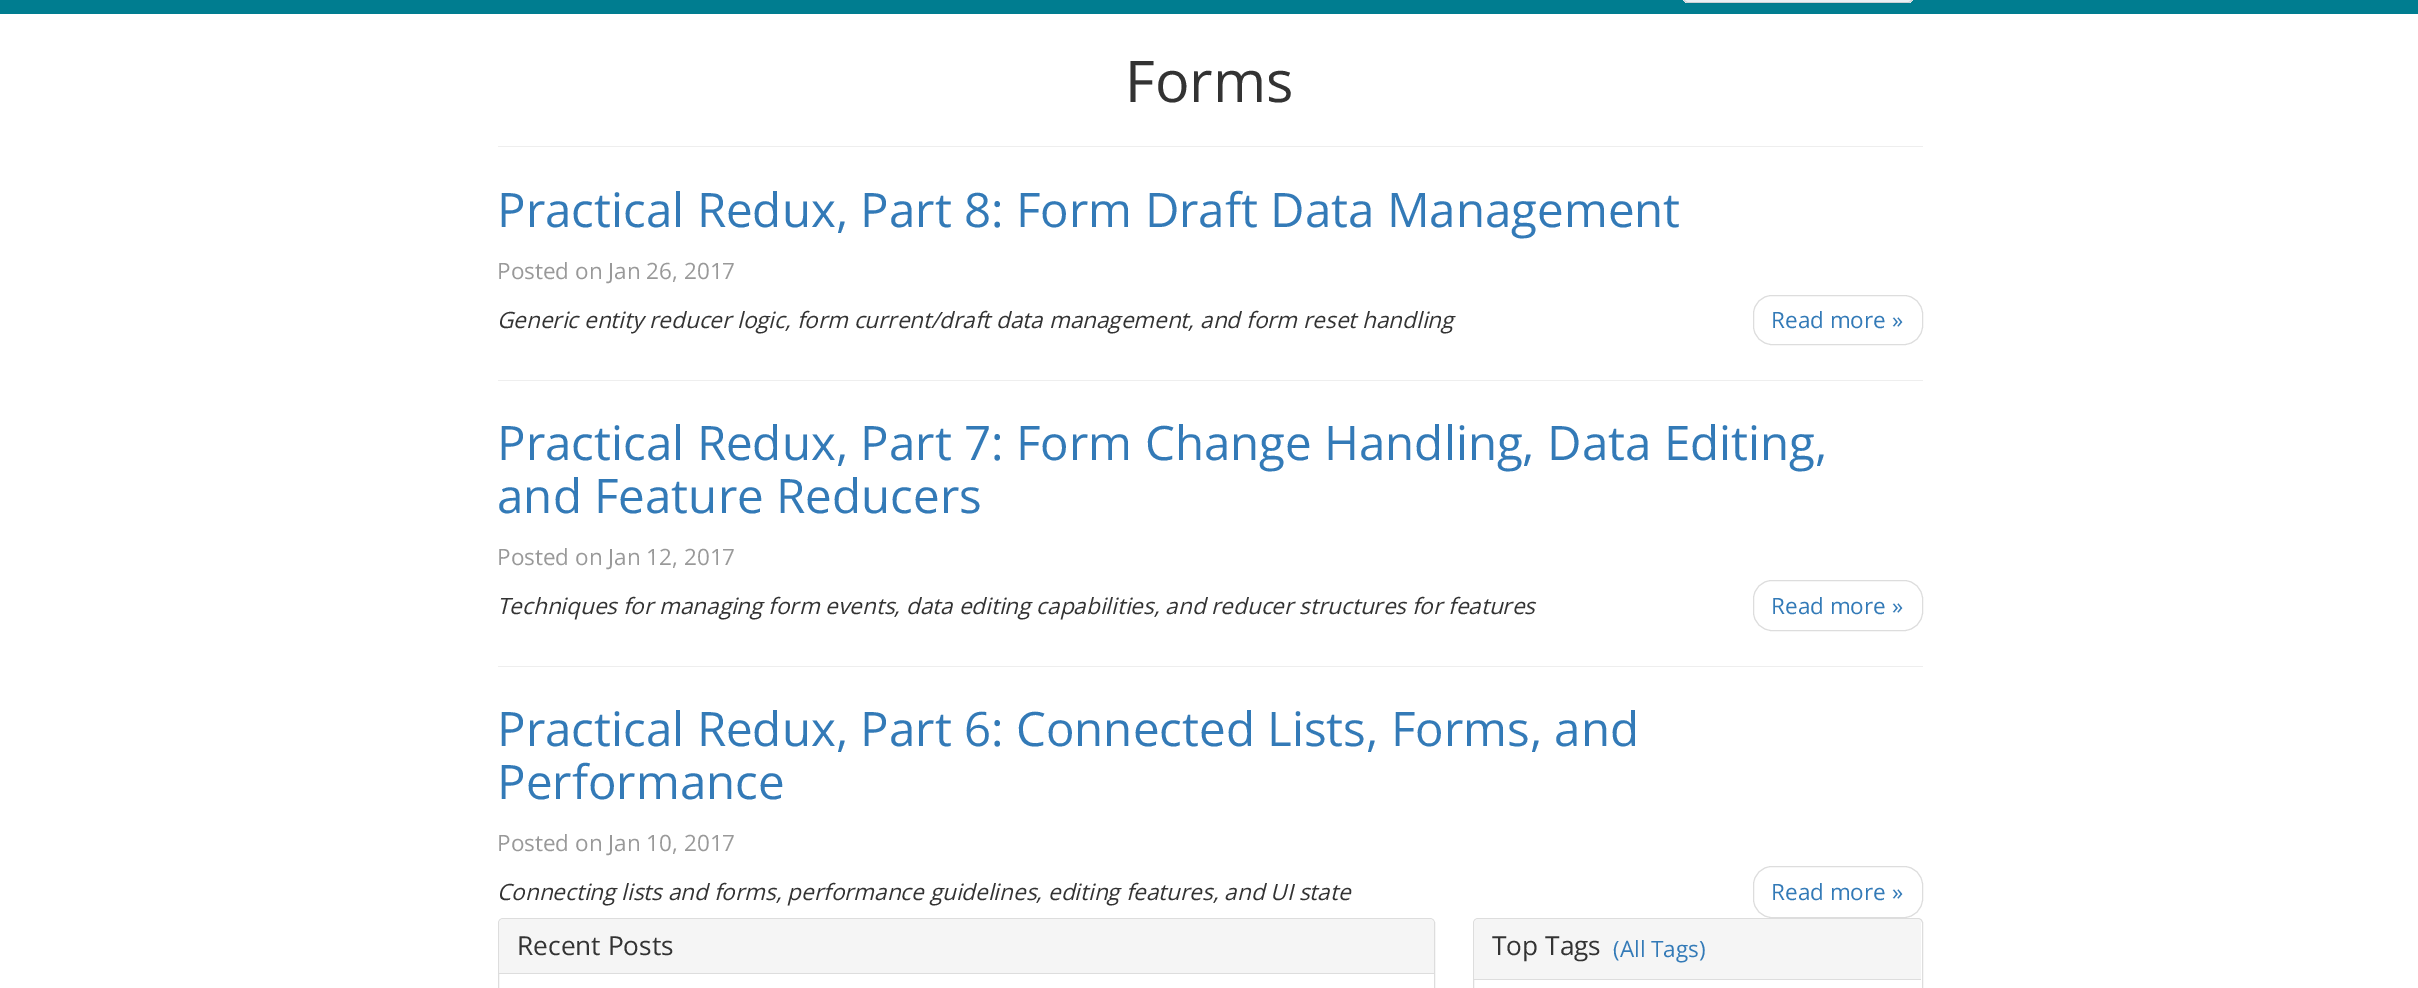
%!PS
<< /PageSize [2418 988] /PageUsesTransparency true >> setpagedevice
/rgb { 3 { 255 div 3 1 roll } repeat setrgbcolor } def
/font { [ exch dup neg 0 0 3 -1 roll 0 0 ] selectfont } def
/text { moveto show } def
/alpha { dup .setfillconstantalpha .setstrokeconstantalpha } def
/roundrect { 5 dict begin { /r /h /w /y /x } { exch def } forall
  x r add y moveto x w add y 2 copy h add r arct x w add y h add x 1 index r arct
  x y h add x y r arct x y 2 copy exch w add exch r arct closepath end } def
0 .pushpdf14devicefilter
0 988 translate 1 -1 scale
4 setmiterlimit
255 255 255 rgb
0 0 2418 988 rectfill
0 125 144 rgb
0 0 2418 14 rectfill
gsave 1683 -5 230 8 5 roundrect clip newpath
<< /ShadingType 2 /ColorSpace /DeviceRGB /Coords [1808 -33 1808 3.3] /Extend [true true] /Function << /FunctionType 3 /Domain [0 1] /Functions [<< /FunctionType 2 /Domain [0 1] /C0 [0.965 0.973 0.98] /C1 [0.922 0.941 0.957] /N 1 >> << /FunctionType 2 /Domain [0 1] /C0 [0.922 0.941 0.957] /C1 [0.922 0.941 0.957] /N 1 >>] /Bounds [0.9] /Encode [0 1 0 1] >> >> shfill grestore
0.15 alpha
27 31 36 rgb
1683.5 -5.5 229 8 4.5 roundrect stroke
1 alpha
238 238 238 rgb
498 146 1425 1 rectfill
221 221 221 rgb
1753.5 295.5 169 49 18.5 roundrect stroke
238 238 238 rgb
498 380 1425 1 rectfill
221 221 221 rgb
1753.5 580.5 169 50 18.5 roundrect stroke
238 238 238 rgb
498 666 1425 1 rectfill
221 221 221 rgb
1753.5 866.5 169 51 18.5 roundrect stroke
498.5 918.5 936 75 4.5 roundrect stroke
245 245 245 rgb
503 919 moveto 927 0 rlineto 2 0 4 2 4 4 rcurveto 0 51 rlineto -935 0 rlineto 0 -51 rlineto 0 -2 2 -4 4 -4 rcurveto closepath fill
221 221 221 rgb
499 973 935 1 rectfill
1473.5 918.5 449 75 4.5 roundrect stroke
245 245 245 rgb
1478 919 moveto 439 0 rlineto 2 0 4 2 4 4 rcurveto 0 57 rlineto -447 0 rlineto 0 -57 rlineto 0 -2 2 -4 4 -4 rcurveto closepath fill
221 221 221 rgb
1474 979 447 1 rectfill
/OpenSans-Regular 57.5 font
51 51 51 rgb
(Forms) 1125 102 text
/OpenSans-Regular 47.5 font
51 122 183 rgb
(Practical Redux, Part 8: Form Draft Data Management) 497 227 text
/OpenSans-Regular 22.5 font
153 153 153 rgb
(Posted on Jan 26, 2017) 497 279 text
/OpenSans-Italic 22.5 font
51 51 51 rgb
(Generic entity reducer logic, form current/draft data management, and form reset handling) 497 328 text
/OpenSans-Regular 22.5 font
51 122 183 rgb
(Read more ») 1771 328 text
/OpenSans-Regular 47.5 font
(Practical Redux, Part 7: Form Change Handling, Data Editing,) 497 460 text
(and Feature Reducers) 497 513 text
/OpenSans-Regular 22.5 font
153 153 153 rgb
(Posted on Jan 12, 2017) 497 565 text
/OpenSans-Italic 22.5 font
51 51 51 rgb
(Techniques for managing form events, data editing capabilities, and reducer structures for features) 497 614 text
/OpenSans-Regular 22.5 font
51 122 183 rgb
(Read more ») 1771 614 text
/OpenSans-Regular 47.5 font
(Practical Redux, Part 6: Connected Lists, Forms, and) 497 746 text
(Performance) 497 799 text
/OpenSans-Regular 22.5 font
153 153 153 rgb
(Posted on Jan 10, 2017) 497 851 text
/OpenSans-Italic 22.5 font
51 51 51 rgb
(Connecting lists and forms, performance guidelines, editing features, and UI state) 497 900 text
/OpenSans-Regular 22.5 font
51 122 183 rgb
(Read more ») 1771 900 text
/OpenSans-Regular 26.25 font
51 51 51 rgb
(Recent Posts) 517 955 text
(Top Tags) 1492 955 text
/OpenSans-Regular 22.5 font
51 122 183 rgb
(\(All Tags\)) 1613 957 text
.poppdf14devicefilter showpage
